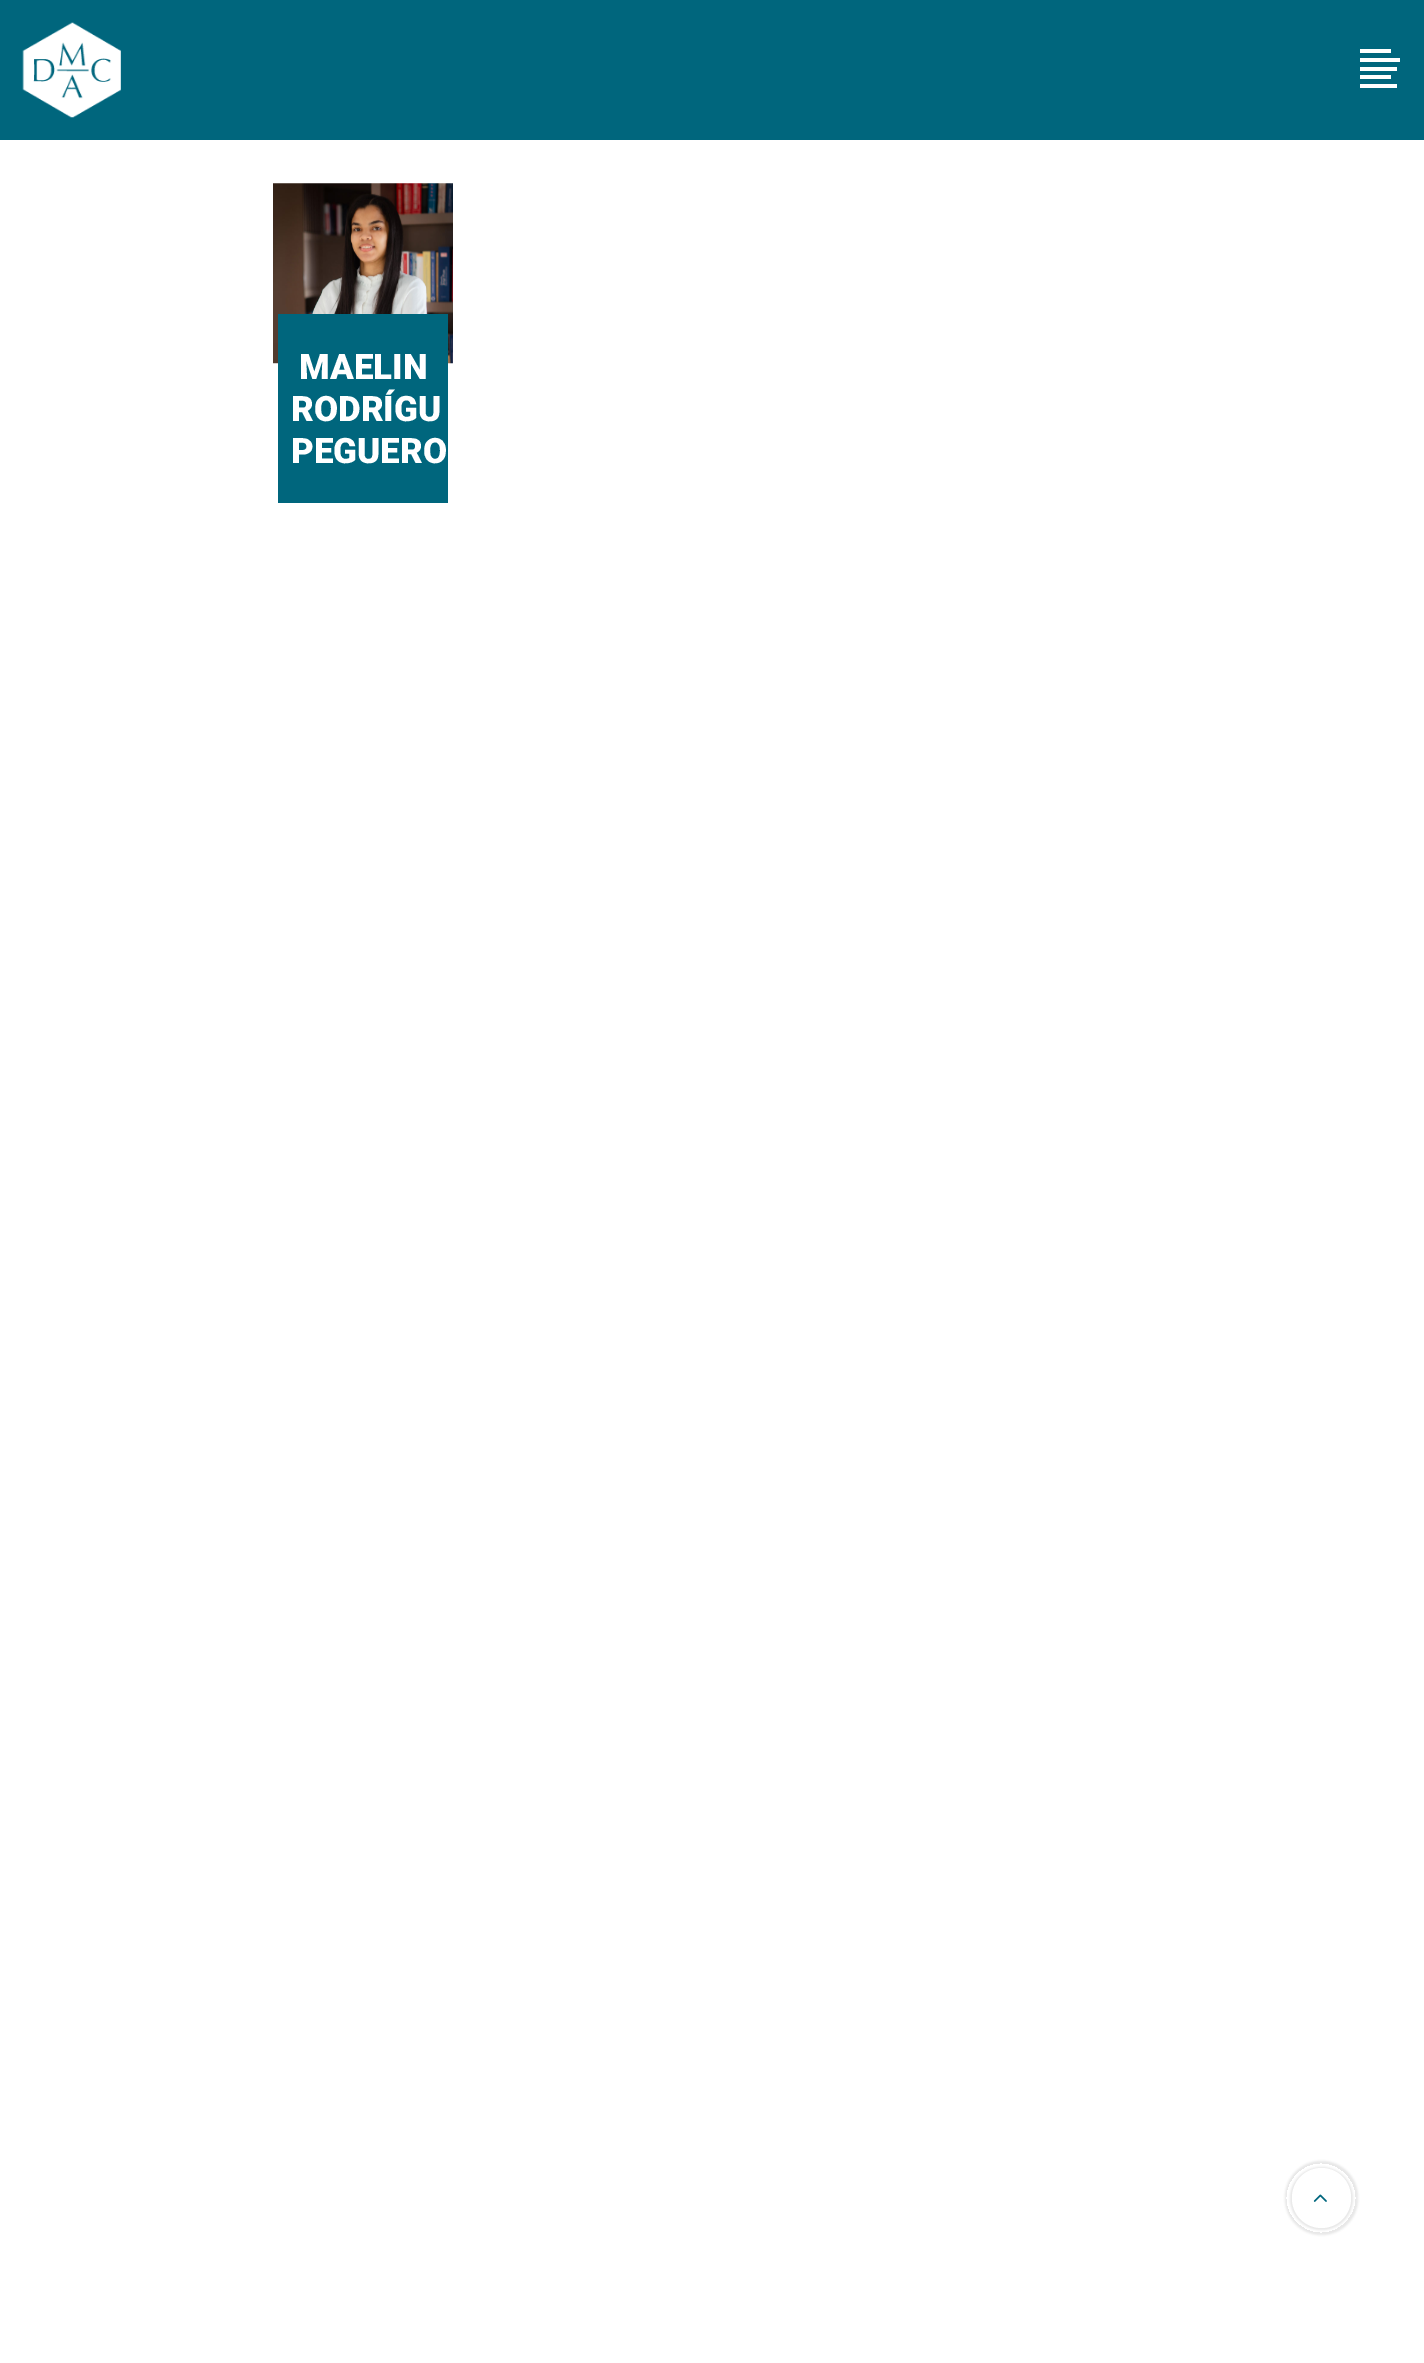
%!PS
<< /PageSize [1424 2363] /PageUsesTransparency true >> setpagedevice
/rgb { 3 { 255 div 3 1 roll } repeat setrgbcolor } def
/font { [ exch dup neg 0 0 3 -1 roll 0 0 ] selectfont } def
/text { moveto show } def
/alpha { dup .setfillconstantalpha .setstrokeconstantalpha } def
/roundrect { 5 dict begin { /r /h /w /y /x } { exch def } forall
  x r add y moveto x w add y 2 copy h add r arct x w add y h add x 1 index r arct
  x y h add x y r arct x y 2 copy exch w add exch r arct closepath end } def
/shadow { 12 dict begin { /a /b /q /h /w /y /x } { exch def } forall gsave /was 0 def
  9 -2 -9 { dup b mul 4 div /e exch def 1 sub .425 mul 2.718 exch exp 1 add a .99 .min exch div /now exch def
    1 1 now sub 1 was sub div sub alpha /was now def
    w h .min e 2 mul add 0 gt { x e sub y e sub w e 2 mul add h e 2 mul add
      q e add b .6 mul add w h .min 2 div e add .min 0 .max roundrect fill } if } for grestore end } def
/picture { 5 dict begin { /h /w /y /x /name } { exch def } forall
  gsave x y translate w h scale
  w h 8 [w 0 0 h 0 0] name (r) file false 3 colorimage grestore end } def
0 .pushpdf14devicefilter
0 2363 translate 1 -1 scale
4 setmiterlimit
255 255 255 rgb
0 0 1424 2363 rectfill
0 102 125 rgb
0 0 1424 140 rectfill
(img_01.rgb) 22 22 99 96 picture
255 255 255 rgb
1360 49 31 4 rectfill
1360 58 40 4 rectfill
1360 67 37 4 rectfill
1360 75 31 4 rectfill
1360 84 37 4 rectfill
(img_02.rgb) 273 183 180 181 picture
0 102 125 rgb
278 314 170 189 rectfill
231 231 231 rgb
1290 2167 63 63 31.5 1 1 shadow
gsave
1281 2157 moveto 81 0 rlineto 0 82 rlineto -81 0 rlineto closepath 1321 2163 moveto 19.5 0 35 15.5 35 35 rcurveto 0 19.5 -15.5 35 -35 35 rcurveto -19.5 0 -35 -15.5 -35 -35 rcurveto 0 -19.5 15.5 -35 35 -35 rcurveto closepath eoclip newpath
1285 2161 73 74 36.5 1 1 shadow
grestore
255 255 255 rgb
1292 2168 59 60 29.5 roundrect fill
(img_03.rgb) 1313 2194 14 8 picture
/Roboto-Black 35 font
(MAELIN) 299 379 text
(RODRÍGU) 291 421 text
(PEGUERO) 291 463 text
.poppdf14devicefilter showpage
